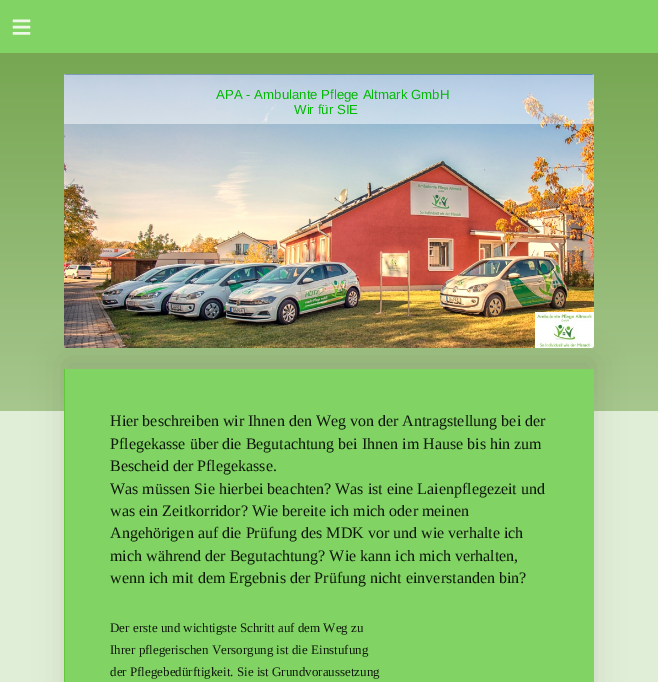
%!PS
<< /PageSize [658 682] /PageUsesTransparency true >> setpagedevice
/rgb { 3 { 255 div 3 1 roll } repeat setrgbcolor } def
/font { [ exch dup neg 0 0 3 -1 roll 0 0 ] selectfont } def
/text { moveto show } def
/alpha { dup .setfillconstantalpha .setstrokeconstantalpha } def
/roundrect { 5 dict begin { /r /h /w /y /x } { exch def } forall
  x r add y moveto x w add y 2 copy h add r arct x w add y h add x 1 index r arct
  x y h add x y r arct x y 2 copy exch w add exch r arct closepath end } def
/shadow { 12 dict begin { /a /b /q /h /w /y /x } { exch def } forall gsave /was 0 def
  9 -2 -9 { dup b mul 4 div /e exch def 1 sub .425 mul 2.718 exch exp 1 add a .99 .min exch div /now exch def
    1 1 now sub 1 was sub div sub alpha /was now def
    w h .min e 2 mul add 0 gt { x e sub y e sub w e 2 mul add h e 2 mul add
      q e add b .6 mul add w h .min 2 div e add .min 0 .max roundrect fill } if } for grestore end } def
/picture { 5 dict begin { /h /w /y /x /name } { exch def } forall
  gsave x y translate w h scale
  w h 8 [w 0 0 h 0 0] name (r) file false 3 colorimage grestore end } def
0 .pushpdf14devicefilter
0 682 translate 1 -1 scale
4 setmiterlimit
225 238 215 rgb
0 0 658 682 rectfill
129 211 99 rgb
0 0 658 53 rectfill
gsave 0 53 moveto 658 0 rlineto 0 358 rlineto -658 0 rlineto closepath clip newpath
<< /ShadingType 2 /ColorSpace /DeviceRGB /Coords [0 411 0 53] /Extend [true true] /Function << /FunctionType 2 /Domain [0 1] /C0 [0.655 0.78 0.557] /C1 [0.467 0.655 0.322] /N 1 >> >> shfill grestore
(img_01.rgb) 64 74 530 274 picture
0 0 0 rgb
64 359 530 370 2 15 0.1 shadow
(img_02.rgb) 64 74 530 274 picture
0.5 alpha
255 255 255 rgb
64 75 530 49 rectfill
1 alpha
(img_03.rgb) 535 312 59 36 picture
129 211 99 rgb
64 369 530 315 2 roundrect fill
97 200 59 rgb
64 369 1 313 rectfill
/LiberationSans-Regular 36 font
237 247 230 rgb
11 39 moveto 10 0 (≡) ashow
/LiberationSans-Regular 13.25 font
2 184 4 rgb
(APA - Ambulante Pflege Altmark GmbH) 216 99 text
(Wir für SIE) 294 114 text
/LiberationSerif-Regular 16 font
14 24 11 rgb
(Hier beschreiben wir Ihnen den Weg von der Antragstellung bei der) 110 426 text
(Pflegekasse über die Begutachtung bei Ihnen im Hause bis hin zum) 110 449 text
(Bescheid der Pflegekasse.) 110 471 text
(Was müssen Sie hierbei beachten? Was ist eine Laienpflegezeit und) 110 494 text
(was ein Zeitkorridor? Wie bereite ich mich oder meinen) 110 516 text
(Angehörigen auf die Prüfung des MDK vor und wie verhalte ich) 110 538 text
(mich während der Begutachtung? Wie kann ich mich verhalten,) 110 561 text
(wenn ich mit dem Ergebnis der Prüfung nicht einverstanden bin?) 110 583 text
/LiberationSerif-Regular 13 font
(Der erste und wichtigste Schritt auf dem Weg zu) 110 632 text
(Ihrer pflegerischen Versorgung ist die Einstufung) 110 654 text
(der Pflegebedürftigkeit. Sie ist Grundvoraussetzung) 110 676 text
.poppdf14devicefilter showpage
